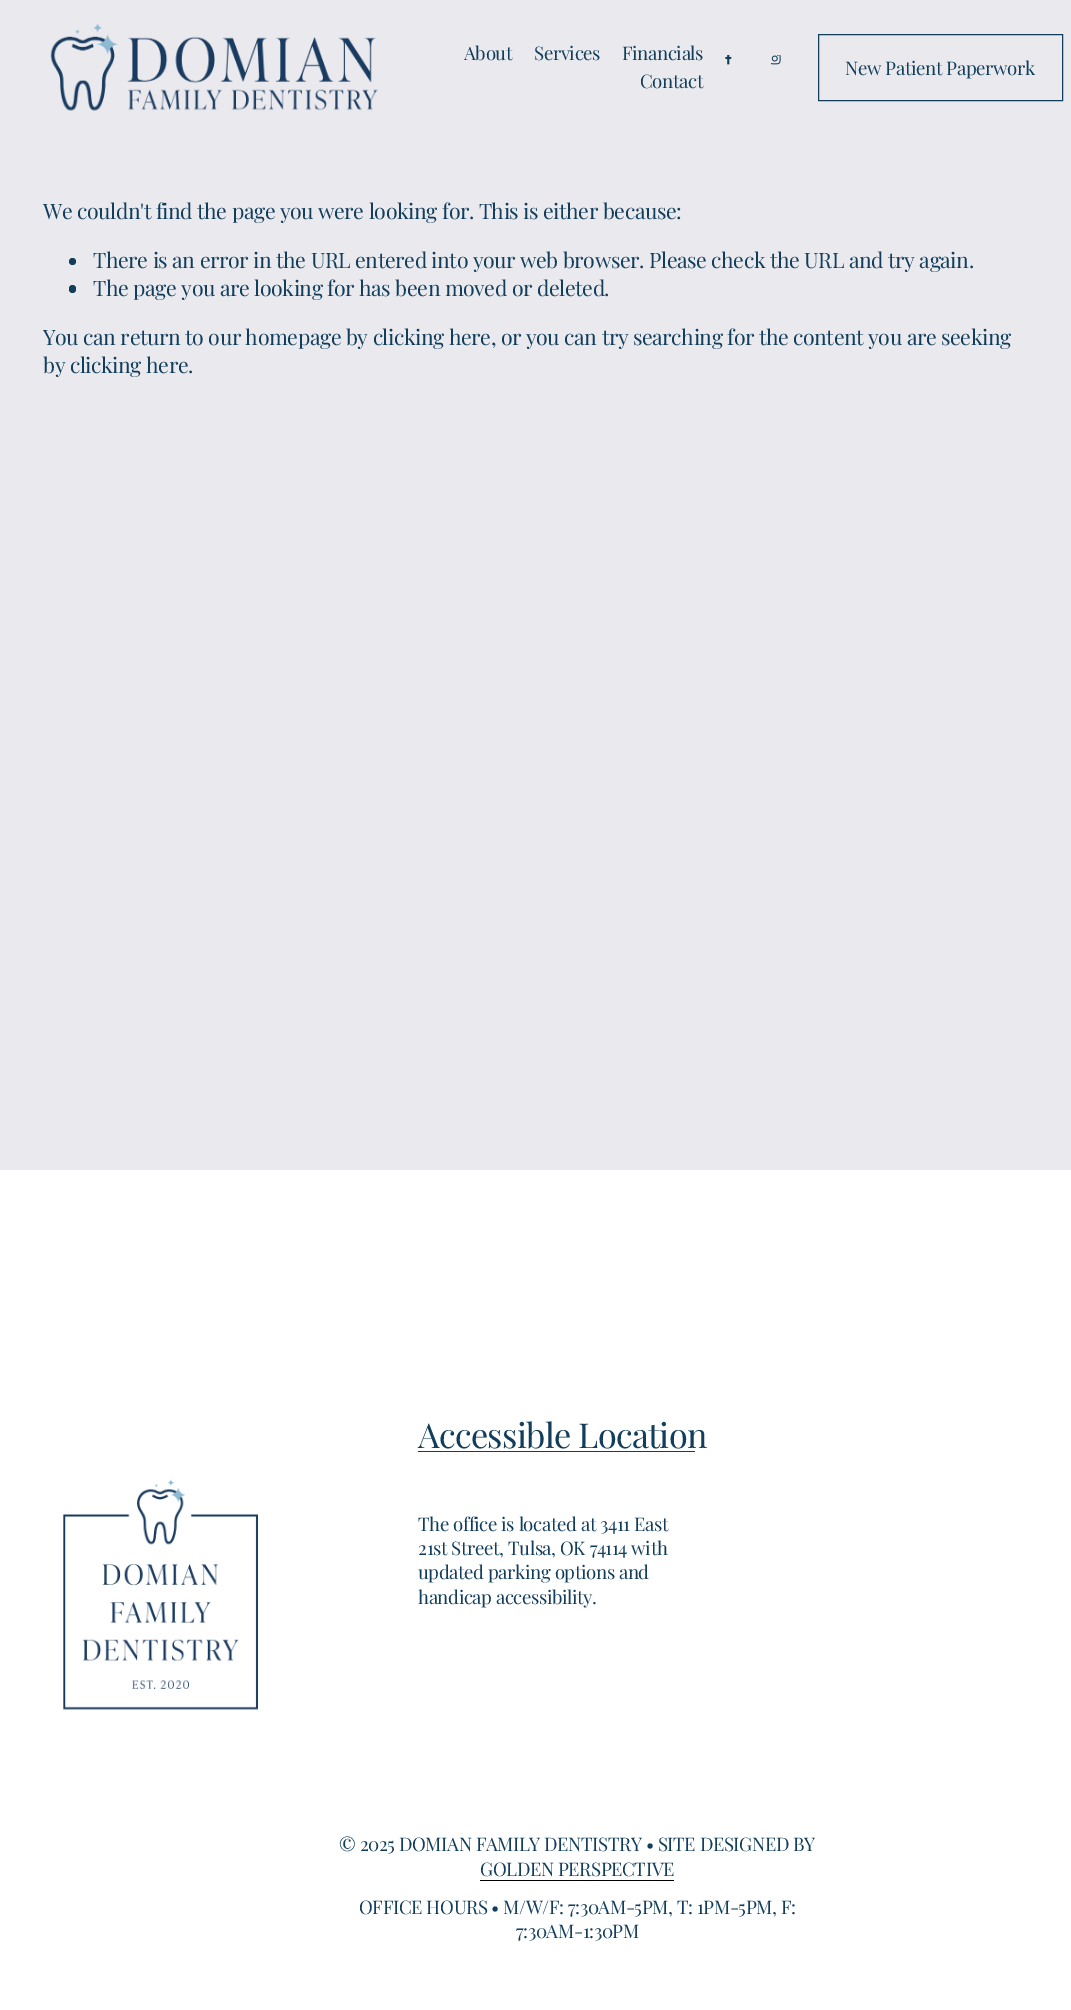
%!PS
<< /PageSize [1071 2010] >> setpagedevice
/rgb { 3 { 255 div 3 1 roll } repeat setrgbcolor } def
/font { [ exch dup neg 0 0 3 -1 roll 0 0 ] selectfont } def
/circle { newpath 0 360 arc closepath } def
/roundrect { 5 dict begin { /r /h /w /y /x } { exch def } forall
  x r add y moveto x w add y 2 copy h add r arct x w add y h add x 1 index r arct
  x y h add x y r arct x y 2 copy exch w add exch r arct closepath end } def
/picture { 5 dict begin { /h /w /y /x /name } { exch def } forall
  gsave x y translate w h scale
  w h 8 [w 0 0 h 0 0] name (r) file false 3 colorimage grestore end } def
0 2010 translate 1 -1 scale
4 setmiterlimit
234 234 238 rgb
0 0 1071 2010 rectfill
(img_01.rgb) 50 23 328 88 picture
(img_02.rgb) 725 55 7 10 picture
(img_03.rgb) 771 55 10 10 picture
18 62 92 rgb
818.5 34.5 244 66 rectstroke
72.5 261.5 3.5 circle fill
69 285 7 8 3.5 roundrect fill
255 255 255 rgb
0 1170 1071 840 rectfill
18 62 92 rgb
418 1451 277 1 rectfill
(img_04.rgb) 63 1479 196 231 picture
0 0 0 rgb
480 1880 194 1 rectfill
/PlayfairDisplay-Regular 18.7 font
18 62 92 rgb
464 60 moveto -0.4 0 (About) ashow
534 60 moveto -0.4 0 (Services) ashow
622 60 moveto -0.4 0 (Financials) ashow
640 88 moveto -0.4 0 (Contact) ashow
845 75 moveto -0.4 0 (New Patient Paperwork) ashow
/PlayfairDisplay-Regular 21.3 font
43 219 moveto -0.43 0 (We couldn't find the page you were looking for. This is either because:) ashow
93 268 moveto -0.43 0 (There is an error in the URL entered into your web browser. Please check the URL and try again.) ashow
93 296 moveto -0.43 0 (The page you are looking for has been moved or deleted.) ashow
43 345 moveto -0.43 0 (You can return to our homepage by clicking here, or you can try searching for the) ashow
793 345 moveto -0.43 0 (content you are seeking) ashow
43 373 moveto -0.43 0 (by clicking here.) ashow
/PlayfairDisplay-Regular 34.25 font
418 1448 moveto -0.7 0 (Accessible Location) ashow
/PlayfairDisplay-Regular 18.7 font
418 1531 moveto -0.43 0 (The office is located at 3411 East) ashow
418 1555 moveto -0.43 0 (21st Street, Tulsa, OK 74114 with) ashow
418 1579 moveto -0.43 0 (updated parking options and) ashow
418 1604 moveto -0.43 0 (handicap accessibility.) ashow
339 1851 moveto -0.43 0 (© 2025 DOMIAN FAMILY DENTISTRY • SITE DESIGNED BY) ashow
480 1876 moveto -0.43 0 (GOLDEN PERSPECTIVE) ashow
359 1914 moveto -0.43 0 (OFFICE HOURS • M/W/F: 7:30AM-5PM, T: 1PM-5PM, F:) ashow
516 1938 moveto -0.43 0 (7:30AM-1:30PM) ashow
showpage
